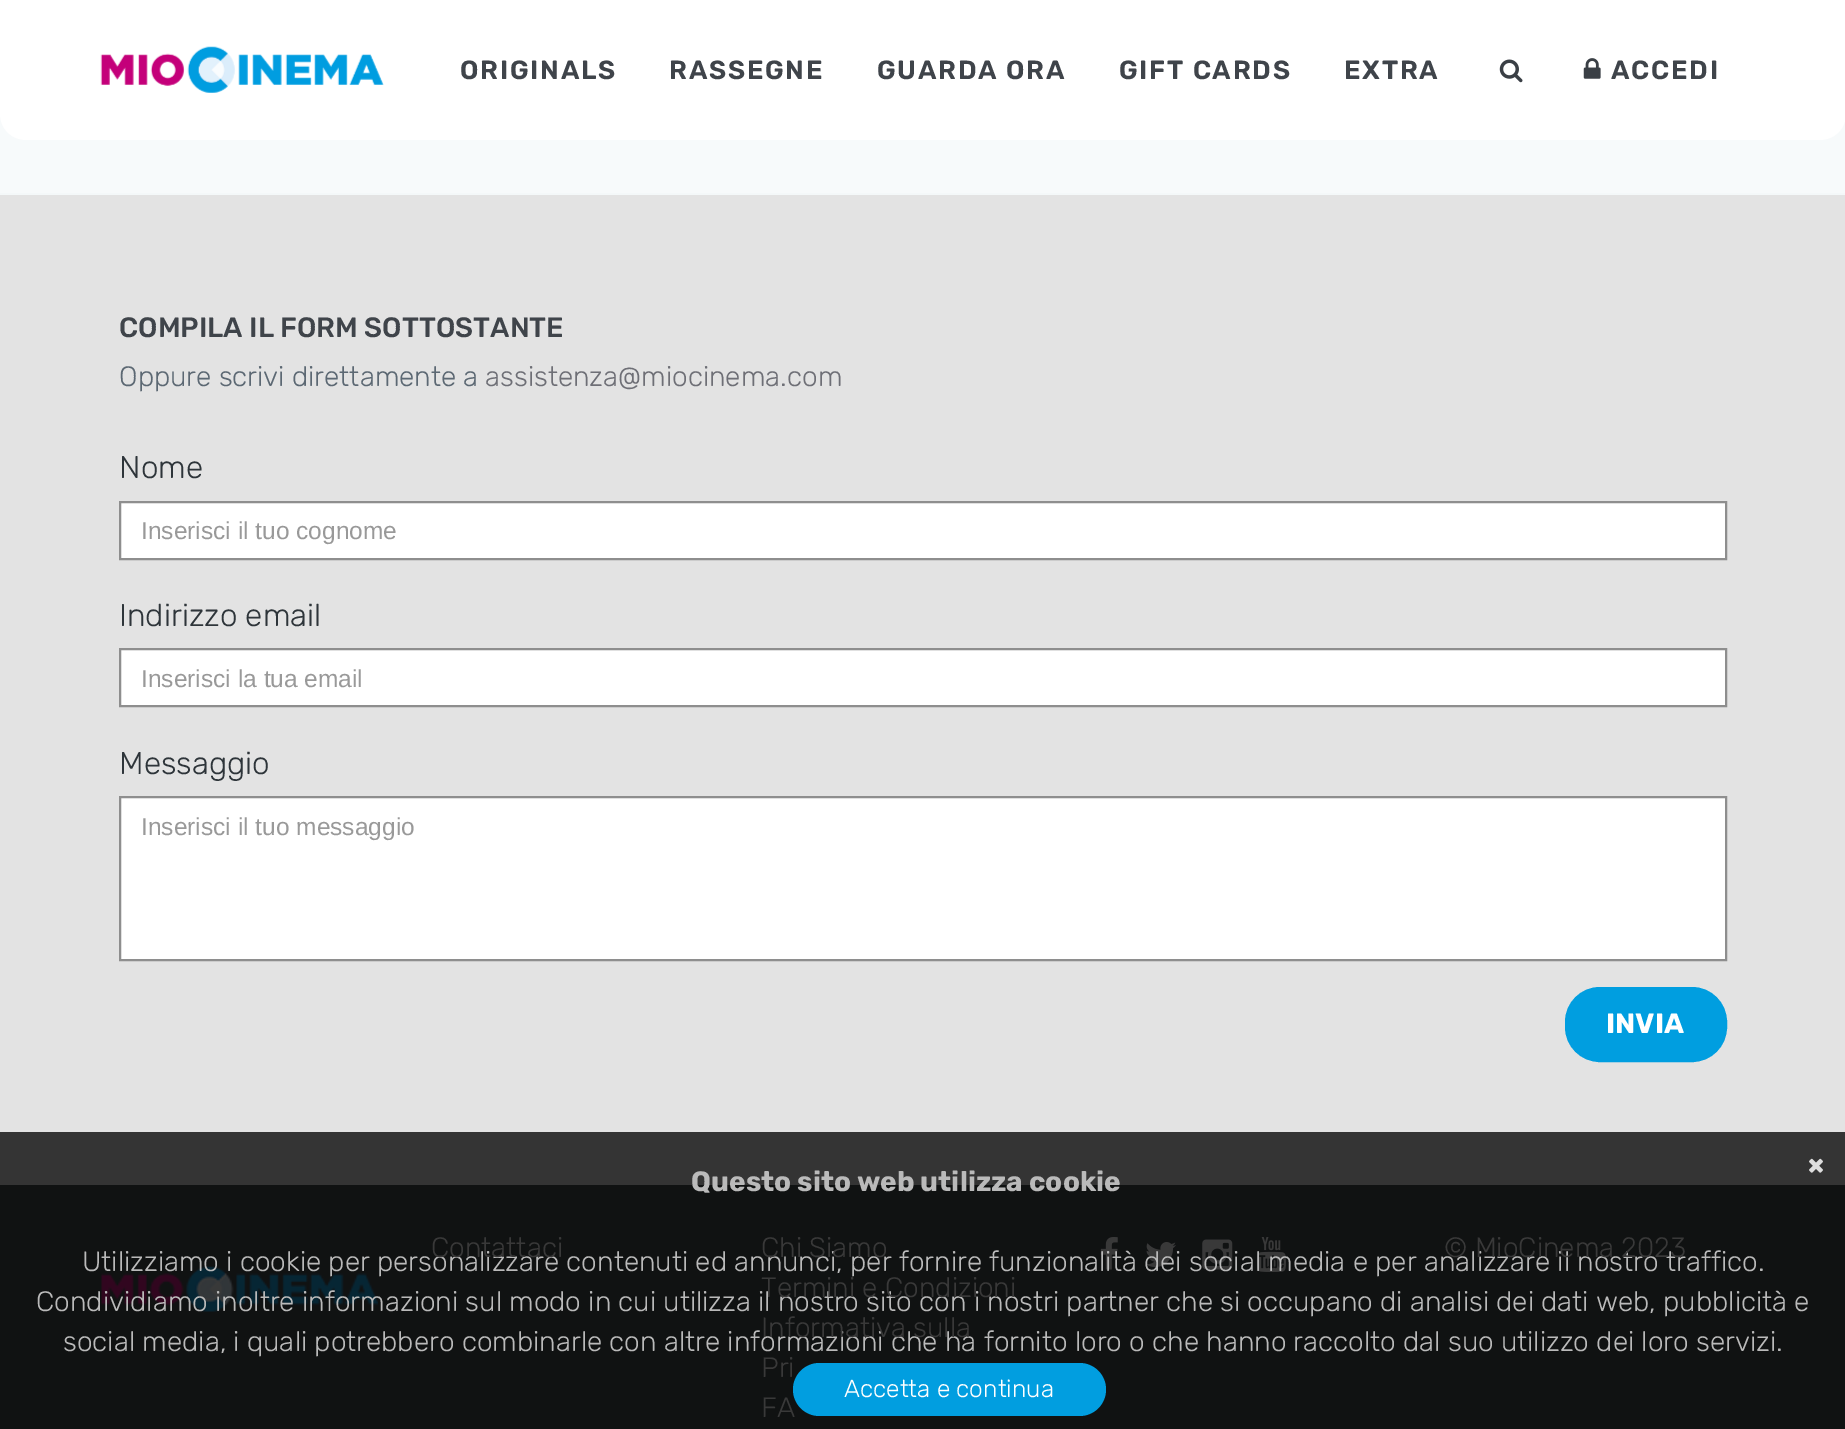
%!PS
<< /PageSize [1845 1429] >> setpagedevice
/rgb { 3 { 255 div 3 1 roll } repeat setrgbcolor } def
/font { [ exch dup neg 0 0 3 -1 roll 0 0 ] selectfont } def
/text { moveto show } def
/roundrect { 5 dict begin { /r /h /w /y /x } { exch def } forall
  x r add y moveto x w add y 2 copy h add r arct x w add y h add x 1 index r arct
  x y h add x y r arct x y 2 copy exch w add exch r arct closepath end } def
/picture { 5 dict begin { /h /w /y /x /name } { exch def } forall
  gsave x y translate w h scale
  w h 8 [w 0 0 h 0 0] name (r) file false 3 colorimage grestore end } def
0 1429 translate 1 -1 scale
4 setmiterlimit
227 227 227 rgb
0 0 1845 1429 rectfill
52 52 52 rgb
0 1132 1845 53 rectfill
247 250 251 rgb
0 114 1845 79 rectfill
255 255 255 rgb
0 0 moveto 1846 0 rlineto 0 114 rlineto 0 14.5 -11.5 26 -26 26 rcurveto -1794 0 rlineto -14.5 0 -26 -11.5 -26 -26 rcurveto closepath fill
(img_01.rgb) 100 46 284 47 picture
(img_02.rgb) 1499 59 24 24 picture
(img_03.rgb) 1583 58 18 21 picture
244 248 249 rgb
0 193 1845 2 rectfill
255 255 255 rgb
120 502 moveto 1606 0 rlineto 0 57 rlineto -1606 0 rlineto closepath gsave fill grestore
142 142 142 rgb
2 setlinewidth
stroke
255 255 255 rgb
120 649 moveto 1606 0 rlineto 0 57 rlineto -1606 0 rlineto closepath gsave fill grestore
142 142 142 rgb
stroke
255 255 255 rgb
120 797 moveto 1606 0 rlineto 0 163 rlineto -1606 0 rlineto closepath gsave fill grestore
142 142 142 rgb
stroke
0 158 224 rgb
1566 988 160 73 34 roundrect gsave fill grestore
stroke
(img_04.rgb) 1809 1158 14 15 picture
16 18 18 rgb
0 1185 1845 244 rectfill
(img_05.rgb) 101 1266 277 46 picture
(img_06.rgb) 1100 1237 18 33 picture
(img_07.rgb) 1145 1242 31 25 picture
(img_08.rgb) 1202 1239 31 31 picture
(img_09.rgb) 1257 1237 29 35 picture
/Rubik-SemiBold 26.25 font
63 68 74 rgb
460 79 moveto 1.75 0 (ORIGINALS) ashow
669 79 moveto 1.75 0 (RASSEGNE) ashow
877 79 moveto 1.75 0 (GUARDA ORA) ashow
1119 79 moveto 1.75 0 (GIFT CARDS) ashow
1344 79 moveto 1.75 0 (EXTRA) ashow
1611 79 moveto 1.75 0 (ACCEDI) ashow
/Rubik-Medium 28 font
(COMPILA IL FORM SOTTOSTANTE) 119 337 text
/Rubik-Light 28 font
92 104 115 rgb
(Oppure scrivi direttamente a) 119 386 text
110 111 118 rgb
(assistenza@miocinema.com) 485 386 text
/Rubik-Light 31.5 font
46 53 58 rgb
(Nome) 119 478 text
/LiberationSans-Regular 24.5 font
153 153 153 rgb
(Inserisci il tuo cognome) 141 539 text
/Rubik-Light 31.5 font
46 53 58 rgb
(Indirizzo email) 119 626 text
/LiberationSans-Regular 24.5 font
153 153 153 rgb
(Inserisci la tua email) 141 687 text
/Rubik-Light 31.5 font
46 53 58 rgb
(Messaggio) 119 774 text
/LiberationSans-Regular 24.5 font
153 153 153 rgb
(Inserisci il tuo messaggio) 141 835 text
/Rubik-Bold 28 font
255 255 255 rgb
(INVIA) 1606 1033 text
186 186 186 rgb
(Questo sito web utilizza cookie) 691 1191 text
/Rubik-Light 28 font
(Utilizziamo i cookie per personalizzare contenuti ed annunci, per fornire funzionalità dei social media e per analizzare il nostro traffico.) 82 1271 text
(Condividiamo inoltre informazioni sul modo in cui utilizza il nostro sito con i nostri partner che si occupano di analisi dei dati web, pubblicità e) 36 1311 text
(social media, i quali potrebbero combinarle con altre informazioni che ha fornito loro o che hanno raccolto dal suo utilizzo dei loro servizi.) 63 1351 text
57 57 57 rgb
(Contattaci) 431 1257 text
(Chi Siamo) 761 1257 text
(Termini e Condizioni) 761 1297 text
(Informativa sulla) 761 1337 text
(Pri) 761 1377 text
(FA) 761 1417 text
1 158 224 rgb
793 1363 313 53 26.5 roundrect fill
/Rubik-Light 24.5 font
255 255 255 rgb
(Accetta e continua) 844 1397 text
/Rubik-Light 28 font
57 57 57 rgb
(© MioCinema 2023) 1444 1257 text
showpage
